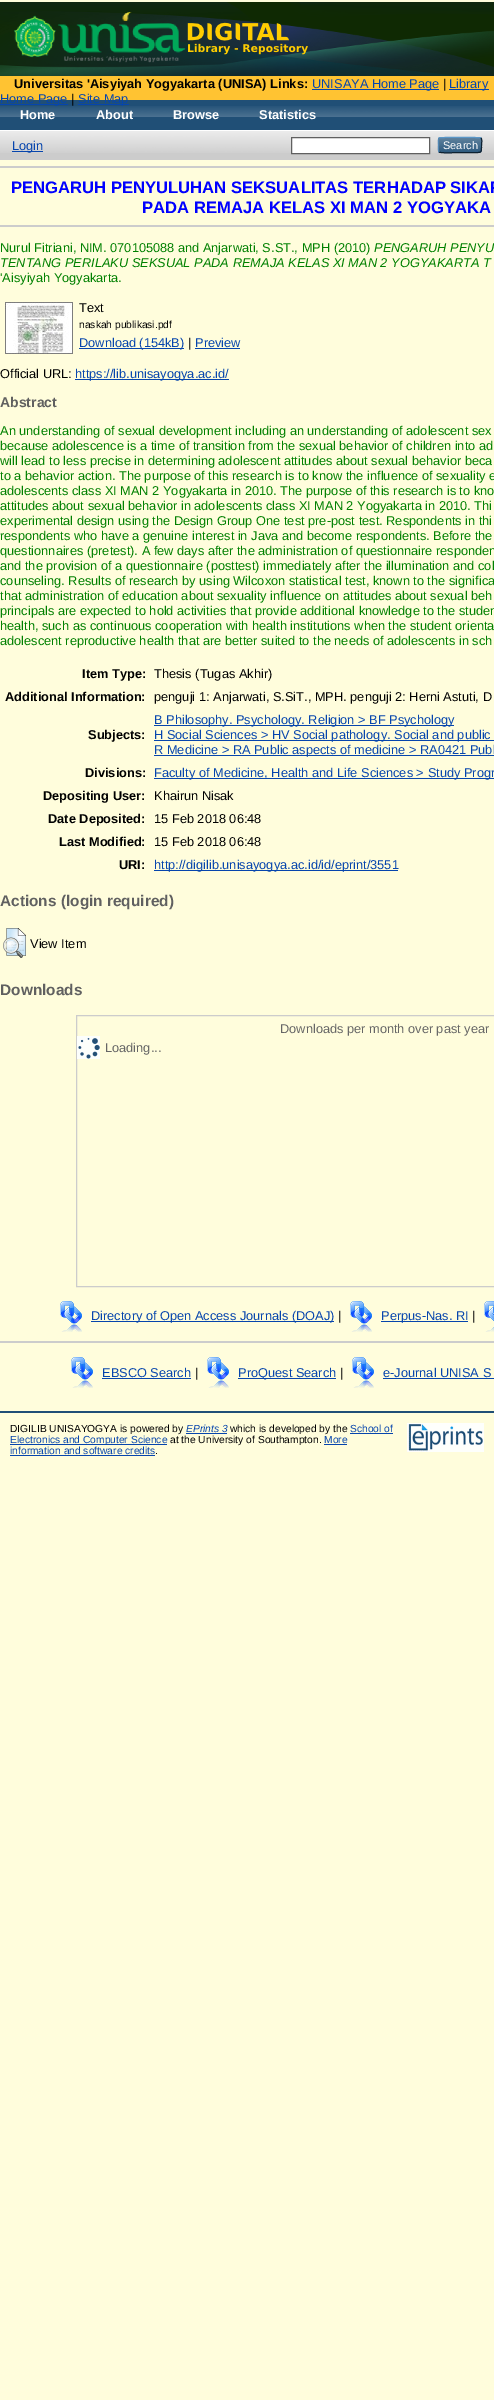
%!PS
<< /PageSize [494 2400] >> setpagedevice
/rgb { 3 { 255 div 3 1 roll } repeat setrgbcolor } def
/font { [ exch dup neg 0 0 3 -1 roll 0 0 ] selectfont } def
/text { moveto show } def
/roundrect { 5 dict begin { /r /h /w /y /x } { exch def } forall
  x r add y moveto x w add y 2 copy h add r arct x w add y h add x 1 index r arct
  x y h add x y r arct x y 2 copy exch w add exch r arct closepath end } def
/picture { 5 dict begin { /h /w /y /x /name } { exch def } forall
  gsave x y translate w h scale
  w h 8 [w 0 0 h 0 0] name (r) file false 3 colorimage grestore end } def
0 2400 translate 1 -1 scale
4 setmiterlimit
255 253 220 rgb
0 0 494 2400 rectfill
15 41 3 rgb
0 2 494 74 rectfill
(img_01.rgb) 0 2 494 74 picture
(img_02.rgb) 14 12 294 51 picture
255 195 50 rgb
0 76 494 24 rectfill
6 69 173 rgb
312 89 127 1 rectfill
449 89 40 1 rectfill
32 79 118 rgb
0 100 494 30 rectfill
6 69 173 rgb
0 104 68 1 rectfill
78 104 51 1 rectfill
(img_03.rgb) 0 106 494 11 picture
255 255 255 rgb
0 130 494 1 rectfill
204 204 204 rgb
0 131 494 29 rectfill
(img_04.rgb) 0 131 494 22 picture
6 69 173 rgb
12 151 31 1 rectfill
255 255 255 rgb
291.5 137.5 moveto 138 0 rlineto 0 16 rlineto -138 0 rlineto closepath gsave fill grestore
96 96 96 rgb
stroke
31 79 118 rgb
438 137 44 16 3 roundrect fill
(img_05.rgb) 438 137 44 16 picture
91 151 199 rgb
439 138 moveto 1.5 -1 40.5 -1 42 0 rcurveto stroke
13 33 49 rgb
481 138 moveto 1.5 2 0.5 5 0.5 7 rcurveto 0 8.5 0.5 7.5 -9 7.5 rcurveto -12.5 0 rlineto -3 0 -19 1 -21 -0.5 rcurveto stroke
82 135 179 rgb
439 152 moveto -1 -1.5 -0.5 -5.5 -0.5 -7 rcurveto 0 -1.5 -0.5 -5.5 0.5 -7 rcurveto stroke
204 204 204 rgb
0 166 494 2 rectfill
0 225 494 2 rectfill
(img_06.rgb) 5 302 68 52 picture
6 69 173 rgb
79 348 105 1 rectfill
195 348 45 1 rectfill
75 379 154 1 rectfill
154 725 300 1 rectfill
154 740 340 1 rectfill
154 755 340 1 rectfill
154 778 340 1 rectfill
154 870 244 1 rectfill
(img_07.rgb) 3 928 23 30 picture
204 204 204 rgb
76.5 1015.5 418 271 rectstroke
(img_08.rgb) 77 1036 23 23 picture
(img_09.rgb) 60 1301 22 31 picture
6 69 173 rgb
91 1321 243 1 rectfill
(img_09.rgb) 350 1301 22 31 picture
381 1321 87 1 rectfill
(img_10.rgb) 484 1301 10 31 picture
204 204 204 rgb
0 1341 494 2 rectfill
(img_09.rgb) 71 1357 22 31 picture
6 69 173 rgb
102 1378 89 1 rectfill
(img_09.rgb) 207 1357 22 31 picture
238 1378 98 1 rectfill
(img_09.rgb) 352 1357 22 31 picture
383 1378 111 1 rectfill
32 79 118 rgb
0 1411 494 2 rectfill
6 69 173 rgb
186 1433 41 1 rectfill
350 1433 43 1 rectfill
10 1444 157 1 rectfill
324 1444 23 1 rectfill
10 1455 145 1 rectfill
(img_11.rgb) 407 1423 77 29 picture
/LiberationSans-Bold 12.8 font
0 0 0 rgb
(Universitas 'Aisyiyah Yogyakarta \(UNISA\) Links:) 14 88 text
/LiberationSans-Regular 12.8 font
6 69 173 rgb
(UNISAYA Home Page) 312 88 text
0 0 0 rgb
(|) 443 88 text
6 69 173 rgb
(Library) 449 88 text
(Home Page) 0 103 text
0 0 0 rgb
(|) 71 103 text
6 69 173 rgb
(Site Map) 78 103 text
/LiberationSans-Bold 12.8 font
255 255 255 rgb
(Home) 20 119 text
(About) 96 119 text
(Browse) 173 119 text
(Statistics) 259 119 text
/LiberationSans-Regular 12.8 font
6 69 173 rgb
(Login) 12 150 text
/LiberationSans-Regular 11 font
255 255 255 rgb
(Search) 443 149 text
/LiberationSans-Bold 16.65 font
0 0 255 rgb
(PENGARUH PENYULUHAN SEKSUALITAS TERHADAP SIKAP) 11 193 text
(PADA REMAJA KELAS XI MAN 2 YOGYAKA) 142 213 text
/LiberationSans-Regular 12.8 font
0 128 0 rgb
(Nurul Fitriani, NIM. 070105088 and Anjarwati, S.ST., MPH \(2010\)) 0 252 text
/LiberationSans-Italic 12.8 font
(PENGARUH PENYU) 374 252 text
(TENTANG PERILAKU SEKSUAL PADA REMAJA KELAS XI MAN 2 YOGYAKARTA T) 0 267 text
/LiberationSans-Regular 12.8 font
('Aisyiyah Yogyakarta.) 0 282 text
0 0 0 rgb
(Text) 79 312 text
/LiberationSans-Regular 10.25 font
(naskah publikasi.pdf) 79 328 text
/LiberationSans-Regular 12.8 font
6 69 173 rgb
(Download \(154kB\)) 79 347 text
0 0 0 rgb
(|) 188 347 text
6 69 173 rgb
(Preview) 195 347 text
0 0 0 rgb
(Official URL:) 0 378 text
6 69 173 rgb
(https://lib.unisayogya.ac.id/) 75 378 text
/LiberationSans-Bold 14 font
96 96 96 rgb
(Abstract) 0 407 text
/LiberationSans-Regular 12.8 font
0 128 0 rgb
(An understanding of sexual development including an understanding of adolescent sex) 0 435 text
(because adolescence is a time of transition from the sexual behavior of children into ad) 0 450 text
(will lead to less precise in determining adolescent attitudes about sexual behavior beca) 0 465 text
(to a behavior action. The purpose of this research is to know the influence of sexuality e) 0 480 text
(adolescents class XI MAN 2 Yogyakarta in 2010. The purpose of this research is to kno) 0 495 text
(attitudes about sexual behavior in adolescents class XI MAN 2 Yogyakarta in 2010. Thi) 0 510 text
(experimental design using the Design Group One test pre-post test. Respondents in thi) 0 525 text
(respondents who have a genuine interest in Java and become respondents. Before the) 0 540 text
(questionnaires \(pretest\). A few days after the administration of questionnaire responden) 0 555 text
(and the provision of a questionnaire \(posttest\) immediately after the illumination and col) 0 570 text
(counseling. Results of research by using Wilcoxon statistical test, known to the significa) 0 585 text
(that administration of education about sexuality influence on attitudes about sexual beh) 0 600 text
(principals are expected to hold activities that provide additional knowledge to the studen) 0 615 text
(health, such as continuous cooperation with health institutions when the student orienta) 0 630 text
(adolescent reproductive health that are better suited to the needs of adolescents in sch) 0 645 text
/LiberationSans-Bold 12.8 font
0 0 0 rgb
(Item Type:) 82 678 text
/LiberationSans-Regular 12.8 font
(Thesis \(Tugas Akhir\)) 154 678 text
/LiberationSans-Bold 12.8 font
(Additional Information:) 5 701 text
/LiberationSans-Regular 12.8 font
(penguji 1: Anjarwati, S.SiT., MPH. penguji 2: Herni Astuti, D) 154 701 text
/LiberationSans-Bold 12.8 font
(Subjects:) 88 739 text
/LiberationSans-Regular 12.8 font
6 69 173 rgb
(B Philosophy. Psychology. Religion > BF Psychology) 154 724 text
(H Social Sciences > HV Social pathology. Social and public) 154 739 text
(R Medicine > RA Public aspects of medicine > RA0421 Publ) 154 754 text
/LiberationSans-Bold 12.8 font
0 0 0 rgb
(Divisions:) 85 777 text
/LiberationSans-Regular 12.8 font
6 69 173 rgb
(Faculty of Medicine, Health and Life Sciences > Study Progr) 154 777 text
/LiberationSans-Bold 12.8 font
0 0 0 rgb
(Depositing User:) 43 800 text
/LiberationSans-Regular 12.8 font
(Khairun Nisak) 154 800 text
/LiberationSans-Bold 12.8 font
(Date Deposited:) 48 823 text
/LiberationSans-Regular 12.8 font
(15 Feb 2018 06:48) 154 823 text
/LiberationSans-Bold 12.8 font
(Last Modified:) 59 846 text
/LiberationSans-Regular 12.8 font
(15 Feb 2018 06:48) 154 846 text
/LiberationSans-Bold 12.8 font
(URI:) 119 869 text
/LiberationSans-Regular 12.8 font
6 69 173 rgb
(http://digilib.unisayogya.ac.id/id/eprint/3551) 154 869 text
/LiberationSans-Bold 15.4 font
96 96 96 rgb
(Actions \(login required\)) 0 906 text
/LiberationSans-Regular 12.8 font
0 0 0 rgb
(View Item) 30 948 text
/LiberationSans-Bold 15.4 font
96 96 96 rgb
(Downloads) 0 995 text
/LiberationSans-Regular 12.8 font
102 102 102 rgb
(Downloads per month over past year) 280 1033 text
(Loading...) 105 1052 text
6 69 173 rgb
(Directory of Open Access Journals \(DOAJ\)) 91 1320 text
0 0 0 rgb
(|) 338 1320 text
6 69 173 rgb
(Perpus-Nas. RI) 381 1320 text
0 0 0 rgb
(|) 472 1320 text
6 69 173 rgb
(EBSCO Search) 102 1377 text
0 0 0 rgb
(|) 195 1377 text
6 69 173 rgb
(ProQuest Search) 238 1377 text
0 0 0 rgb
(|) 340 1377 text
6 69 173 rgb
(e-Journal UNISA S) 383 1377 text
/LiberationSans-Regular 10.25 font
0 0 0 rgb
(DIGILIB UNISAYOGYA is powered by) 10 1432 text
/LiberationSans-Italic 10.25 font
6 69 173 rgb
(EPrints 3) 186 1432 text
/LiberationSans-Regular 10.25 font
0 0 0 rgb
(which is developed by the) 230 1432 text
6 69 173 rgb
(School of) 350 1432 text
(Electronics and Computer Science) 10 1443 text
0 0 0 rgb
(at the University of Southampton.) 170 1443 text
6 69 173 rgb
(More) 324 1443 text
(information and software credits) 10 1454 text
0 0 0 rgb
(.) 155 1454 text
showpage
